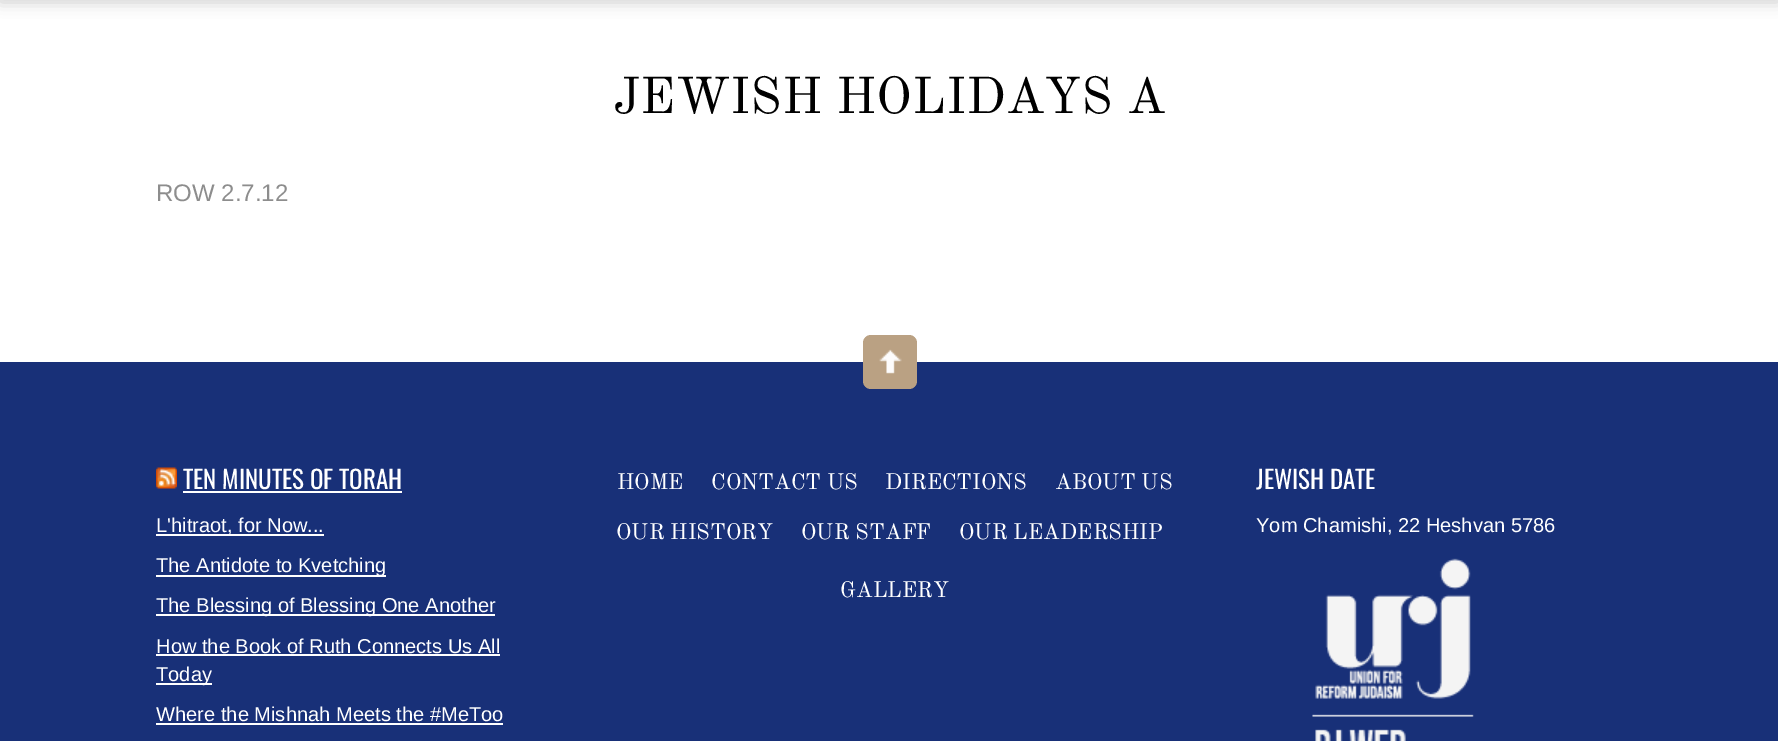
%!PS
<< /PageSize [1778 741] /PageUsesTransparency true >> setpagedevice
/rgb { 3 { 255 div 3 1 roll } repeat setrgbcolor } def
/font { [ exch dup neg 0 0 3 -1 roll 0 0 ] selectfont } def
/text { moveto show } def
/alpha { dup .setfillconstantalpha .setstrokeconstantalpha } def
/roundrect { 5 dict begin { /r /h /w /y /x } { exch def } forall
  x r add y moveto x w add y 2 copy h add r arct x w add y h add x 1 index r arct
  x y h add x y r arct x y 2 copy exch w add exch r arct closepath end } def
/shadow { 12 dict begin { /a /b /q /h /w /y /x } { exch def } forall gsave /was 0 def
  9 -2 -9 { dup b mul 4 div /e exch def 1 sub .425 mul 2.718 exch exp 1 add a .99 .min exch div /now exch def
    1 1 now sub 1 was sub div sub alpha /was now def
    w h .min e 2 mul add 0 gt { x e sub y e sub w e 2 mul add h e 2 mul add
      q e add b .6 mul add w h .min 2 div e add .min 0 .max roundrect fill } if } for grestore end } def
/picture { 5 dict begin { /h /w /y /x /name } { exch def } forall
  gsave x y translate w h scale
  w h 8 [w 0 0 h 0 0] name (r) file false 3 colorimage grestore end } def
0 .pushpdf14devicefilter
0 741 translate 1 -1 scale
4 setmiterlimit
255 255 255 rgb
0 0 1778 741 rectfill
0 0 0 rgb
0 -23 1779 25 0 7.5 0.2 shadow
24 48 120 rgb
0 362 1778 379 rectfill
186 161 131 rgb
863 335 54 54 8 roundrect fill
(img_01.rgb) 879 349 23 25 picture
(img_02.rgb) 156 467 21 22 picture
255 255 255 rgb
183 491 219 2 rectfill
156 534 168 2 rectfill
156 575 230 2 rectfill
156 614 339 2 rectfill
156 654 344 2 rectfill
156 683 56 2 rectfill
156 723 347 2 rectfill
(img_03.rgb) 1312 558 162 183 picture
/OldStandardTT-Regular 50.9 font
0 0 0 rgb
(JEWISH HOLIDAYS A) 613 113 text
/LiberationSans-Regular 24 font
141 141 141 rgb
(ROW 2.7.12) 156 201 text
/Oswald-Regular 25 font
255 255 255 rgb
(TEN MINUTES OF TORAH) 183 489 text
/LiberationSans-Regular 20.1 font
(L'hitraot, for Now...) 156 532 text
(The Antidote to Kvetching) 156 572 text
(The Blessing of Blessing One Another) 156 612 text
(How the Book of Ruth Connects Us All) 156 653 text
(Today) 156 681 text
(Where the Mishnah Meets the #MeToo) 156 721 text
/Oswald-Regular 25 font
(JEWISH DATE) 1256 489 text
/LiberationSans-Regular 20.1 font
(Yom Chamishi, 22 Heshvan 5786) 1256 532 text
/OldStandardTT-Regular 22 font
(ABOUT US) 1055 489 text
(OUR HISTORY) 616 539 text
(OUR STAFF) 801 539 text
(OUR LEADERSHIP) 959 539 text
(HOME) 617 489 text
(CONTACT US) 711 489 text
(DIRECTIONS) 885 489 text
(GALLERY) 840 597 text
.poppdf14devicefilter showpage
